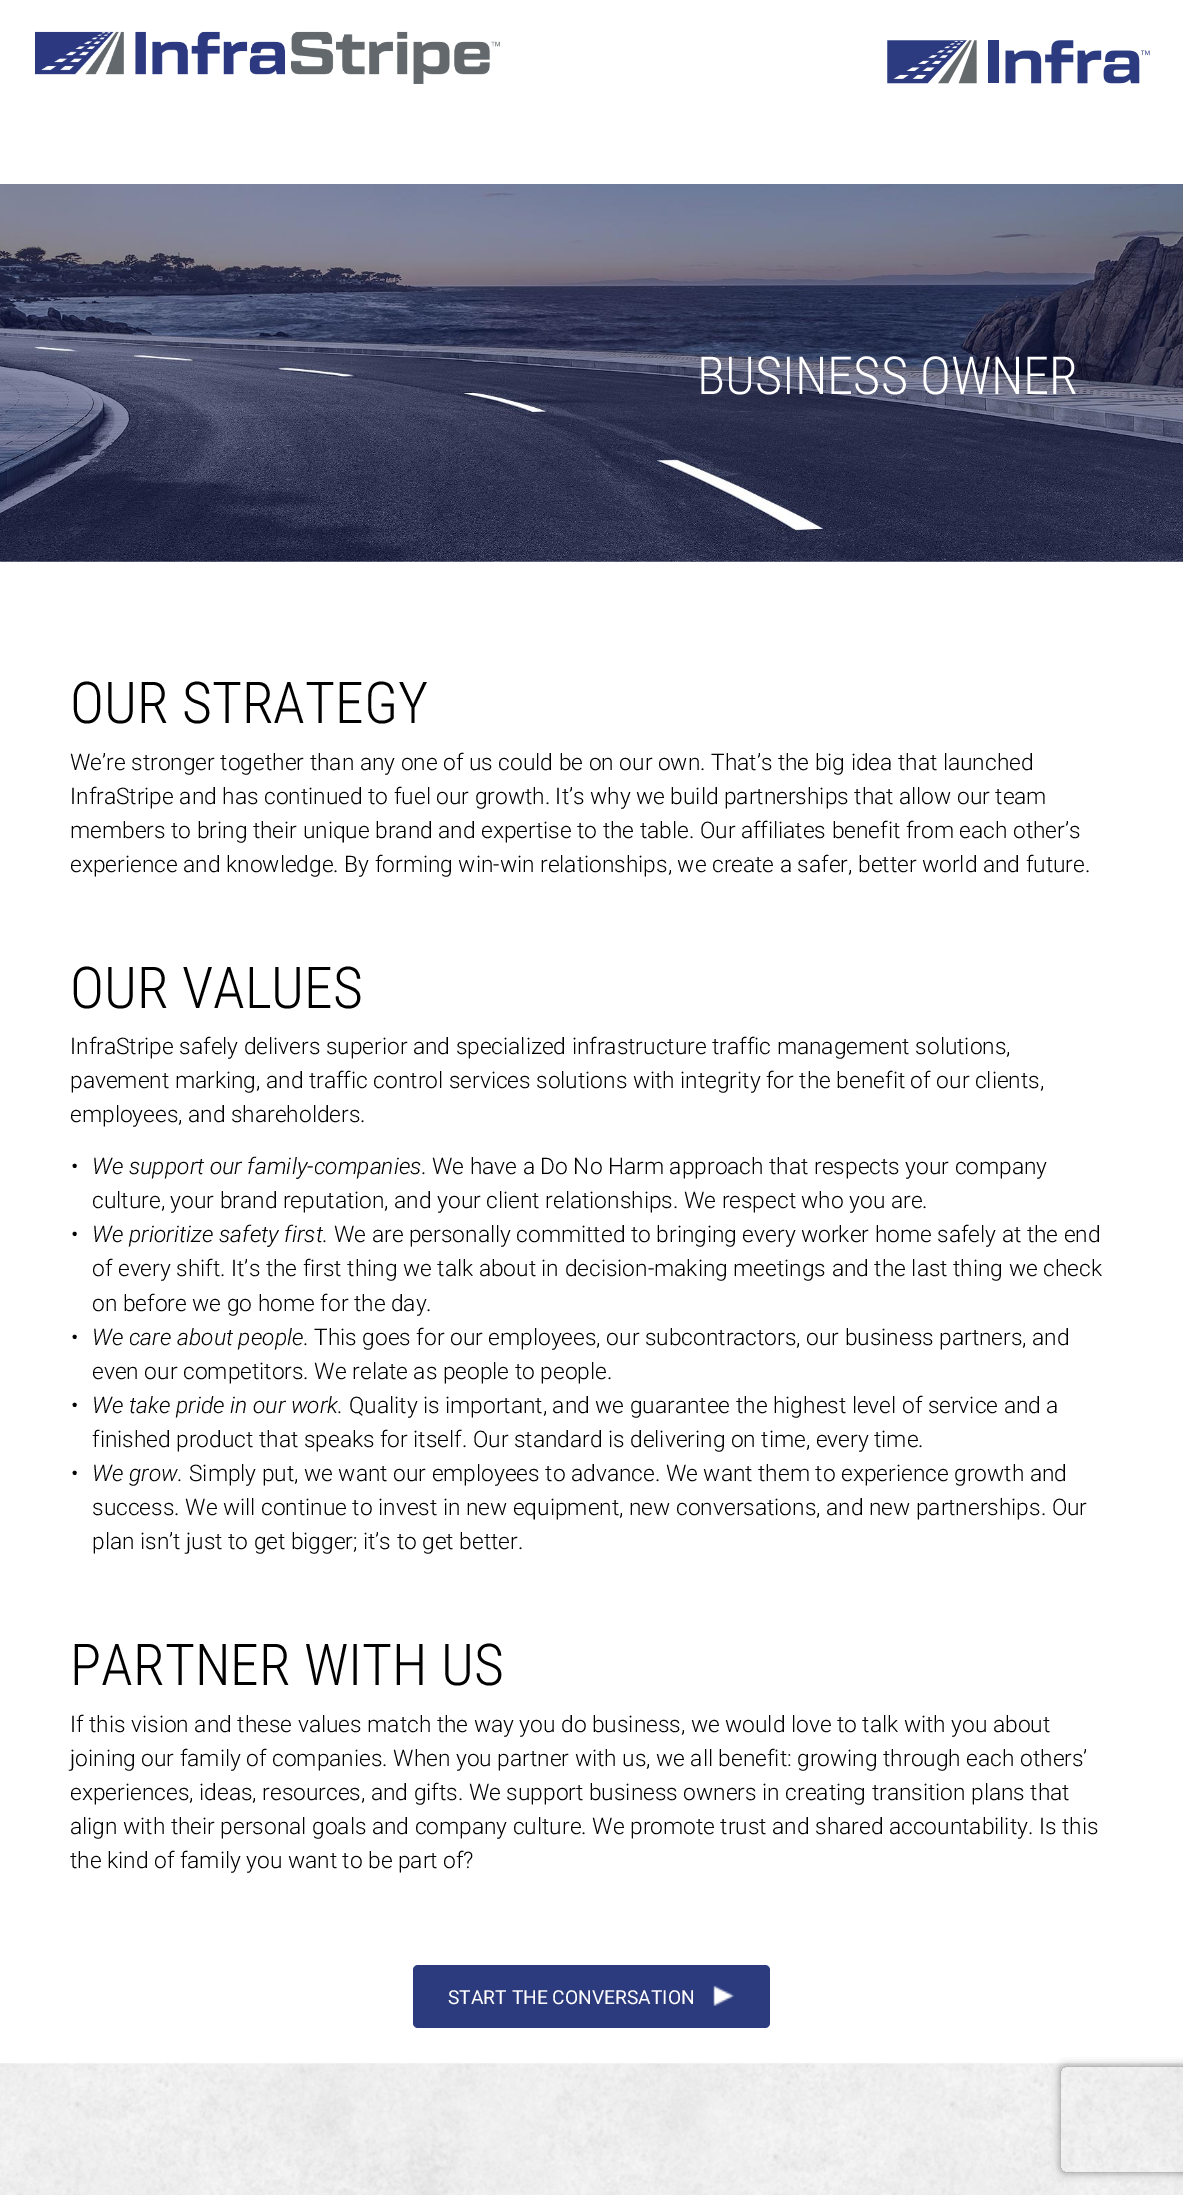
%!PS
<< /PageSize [1183 2195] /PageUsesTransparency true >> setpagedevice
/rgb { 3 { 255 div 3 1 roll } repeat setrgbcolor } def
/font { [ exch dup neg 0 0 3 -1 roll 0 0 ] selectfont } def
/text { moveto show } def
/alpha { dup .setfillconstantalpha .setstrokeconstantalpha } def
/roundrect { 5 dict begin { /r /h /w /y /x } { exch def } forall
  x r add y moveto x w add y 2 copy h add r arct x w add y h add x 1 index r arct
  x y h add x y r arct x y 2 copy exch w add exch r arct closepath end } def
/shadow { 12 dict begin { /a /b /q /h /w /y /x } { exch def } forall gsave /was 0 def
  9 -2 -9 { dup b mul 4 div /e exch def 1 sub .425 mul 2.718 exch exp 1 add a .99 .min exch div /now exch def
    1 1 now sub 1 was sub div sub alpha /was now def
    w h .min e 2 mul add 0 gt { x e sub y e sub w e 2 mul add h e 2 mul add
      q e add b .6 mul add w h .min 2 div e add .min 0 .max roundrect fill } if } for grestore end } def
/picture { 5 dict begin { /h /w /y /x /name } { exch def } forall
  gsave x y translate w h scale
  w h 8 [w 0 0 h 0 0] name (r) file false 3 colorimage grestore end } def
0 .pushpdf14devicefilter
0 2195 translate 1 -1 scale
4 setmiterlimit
255 255 255 rgb
0 0 1183 2195 rectfill
(img_01.rgb) 35 31 465 53 picture
(img_02.rgb) 887 40 263 44 picture
(img_03.rgb) 0 184 1183 378 picture
44 59 126 rgb
413 1965 357 63 5 roundrect fill
(img_04.rgb) 713 1985 21 21 picture
(img_05.rgb) 0 2063 1183 132 picture
gsave
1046 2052 moveto 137 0 rlineto 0 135 rlineto -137 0 rlineto closepath 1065 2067 moveto 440 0 rlineto 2 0 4 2 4 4 rcurveto 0 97 rlineto 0 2 -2 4 -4 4 rcurveto -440 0 rlineto -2 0 -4 -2 -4 -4 rcurveto 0 -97 rlineto 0 -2 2 -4 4 -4 rcurveto closepath eoclip newpath
128 128 128 rgb
1061 2067 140 105 4 4.5 1 shadow
grestore
/RobotoCondensed-Light 52.5 font
255 255 255 rgb
(BUSINESS OWNER) 697 394 text
/RobotoCondensed-Light 57.75 font
0 0 0 rgb
(OUR STRATEGY) 70 723 text
/Roboto-Light 22.75 font
(We’re stronger together than any one of us could be on our own. That’s the big idea that launched) 70 770 text
(InfraStripe and has continued to fuel our growth. It’s why we build partnerships that allow our team) 70 804 text
(members to bring their unique brand and expertise to the table. Our affiliates benefit from each other’s) 70 838 text
(experience and knowledge. By forming win-win relationships, we create a safer, better world and future.) 70 872 text
/RobotoCondensed-Light 57.75 font
(OUR VALUES) 70 1008 text
/Roboto-Light 22.75 font
(InfraStripe safely delivers superior and specialized infrastructure traffic management solutions,) 70 1054 text
(pavement marking, and traffic control services solutions with integrity for the benefit of our clients,) 70 1088 text
(employees, and shareholders.) 70 1122 text
(•) 71 1174 text
/Roboto-LightItalic 22.75 font
(We support our family-companies.) 92 1174 text
/Roboto-Light 22.75 font
(We have a Do No Harm approach that respects your company) 432 1174 text
(culture, your brand reputation, and your client relationships. We respect who you are.) 92 1208 text
(•) 71 1242 text
/Roboto-LightItalic 22.75 font
(We prioritize safety first.) 92 1242 text
/Roboto-Light 22.75 font
(We are personally committed to bringing every worker home safely at the end) 334 1242 text
(of every shift. It’s the first thing we talk about in decision-making meetings and the last thing we check) 92 1276 text
(on before we go home for the day.) 92 1311 text
(•) 71 1345 text
/Roboto-LightItalic 22.75 font
(We care about people.) 92 1345 text
/Roboto-Light 22.75 font
(This goes for our employees, our subcontractors, our business partners, and) 314 1345 text
(even our competitors. We relate as people to people.) 92 1379 text
(•) 71 1413 text
/Roboto-LightItalic 22.75 font
(We take pride in our work.) 92 1413 text
/Roboto-Light 22.75 font
(Quality is important, and we guarantee the highest level of service and a) 349 1413 text
(finished product that speaks for itself. Our standard is delivering on time, every time.) 92 1447 text
(•) 71 1481 text
/Roboto-LightItalic 22.75 font
(We grow.) 92 1481 text
/Roboto-Light 22.75 font
(Simply put, we want our employees to advance. We want them to experience growth and) 189 1481 text
(success. We will continue to invest in new equipment, new conversations, and new partnerships. Our) 92 1515 text
(plan isn’t just to get bigger; it’s to get better.) 92 1549 text
/RobotoCondensed-Light 57.75 font
(PARTNER WITH US) 70 1685 text
/Roboto-Light 22.75 font
(If this vision and these values match the way you do business, we would love to talk with you about) 70 1732 text
(joining our family of companies. When you partner with us, we all benefit: growing through each others’) 70 1766 text
(experiences, ideas, resources, and gifts. We support business owners in creating transition plans that) 70 1800 text
(align with their personal goals and company culture. We promote trust and shared accountability. Is this) 70 1834 text
(the kind of family you want to be part of?) 70 1868 text
/Roboto-Regular 19.25 font
255 255 255 rgb
(START THE CONVERSATION) 448 2004 text
.poppdf14devicefilter showpage
